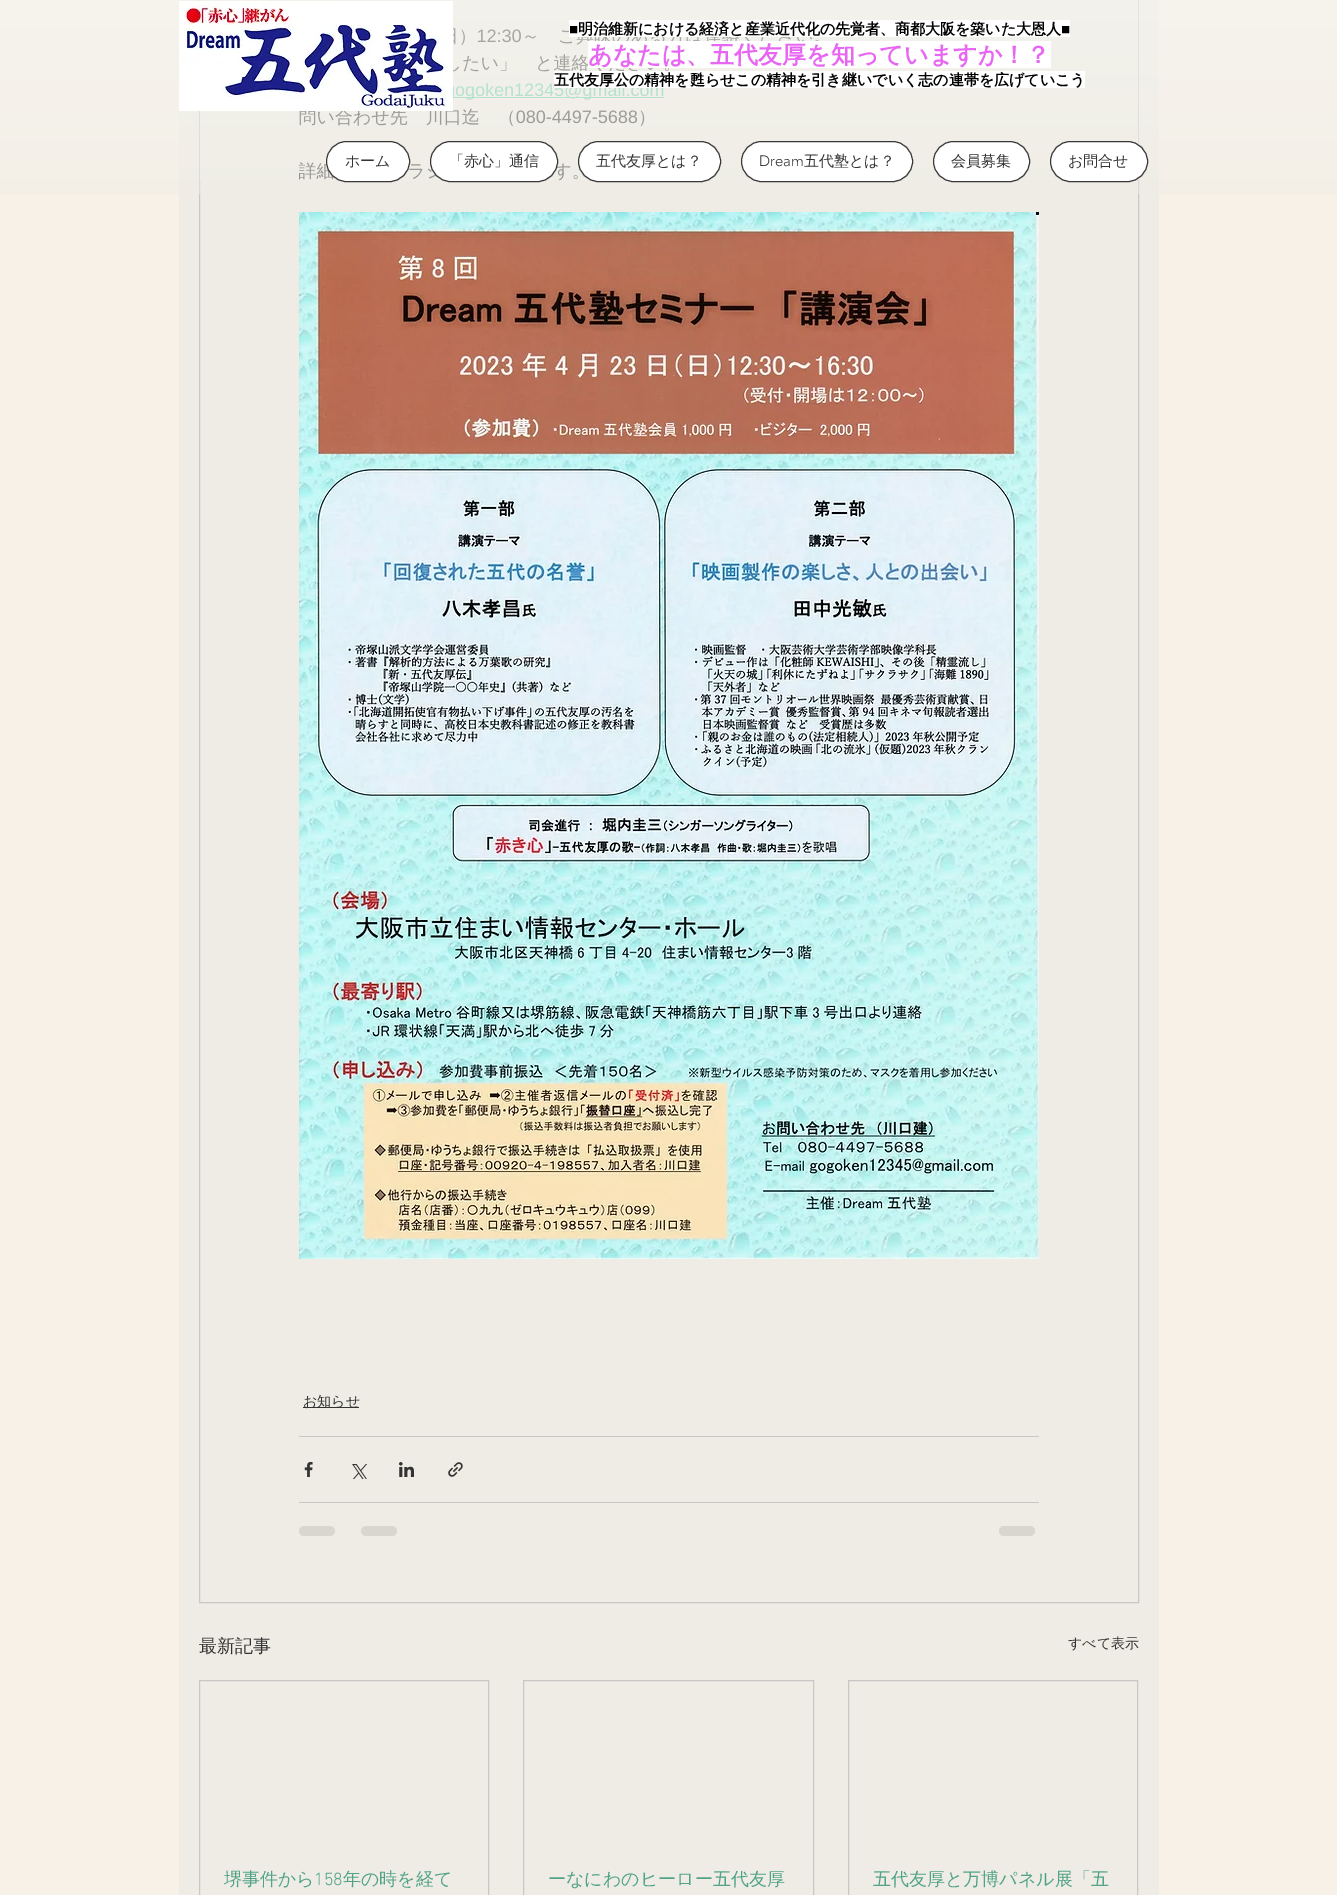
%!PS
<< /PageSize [1337 1895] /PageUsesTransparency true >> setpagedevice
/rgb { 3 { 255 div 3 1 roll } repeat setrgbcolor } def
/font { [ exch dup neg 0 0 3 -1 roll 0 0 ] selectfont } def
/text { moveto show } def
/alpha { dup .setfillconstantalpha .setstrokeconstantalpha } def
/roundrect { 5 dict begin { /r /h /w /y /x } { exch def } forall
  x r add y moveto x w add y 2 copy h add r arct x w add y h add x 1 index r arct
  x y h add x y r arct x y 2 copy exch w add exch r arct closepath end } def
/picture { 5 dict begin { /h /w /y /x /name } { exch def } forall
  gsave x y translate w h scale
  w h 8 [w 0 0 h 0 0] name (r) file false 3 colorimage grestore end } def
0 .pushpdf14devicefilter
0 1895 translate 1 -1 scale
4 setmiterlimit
247 241 232 rgb
0 0 1337 1895 rectfill
238 236 228 rgb
179 0 980 1895 rectfill
200 199 197 rgb
199.5 -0.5 939 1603 rectstroke
101 204 169 rgb
453 97 211 1 rectfill
(img_03.rgb) 299 212 740 1047 picture
51 51 51 rgb
303 1407 56 1 rectfill
201 199 193 rgb
299 1436 740 1 rectfill
(img_04.rgb) 304 1462 9 15 picture
(img_05.rgb) 352 1464 15 15 picture
(img_06.rgb) 399 1462 15 15 picture
(img_07.rgb) 448 1462 15 15 picture
299 1502 740 1 rectfill
216 214 207 rgb
299 1526 36 10 5 roundrect fill
361 1526 36 10 5 roundrect fill
999 1526 36 10 5 roundrect fill
200 199 197 rgb
199.5 1680.5 289 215 rectstroke
523.5 1680.5 290 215 rectstroke
848.5 1680.5 289 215 rectstroke
/WenQuanYiZenHei-Medium 18 font
51 51 51 rgb
(）) 459 42 text
/LiberationSans-Regular 18 font
(12:30) 477 42 text
/WenQuanYiZenHei-Medium 18 font
(～) 522 42 text
(たい」　と連絡) 462 69 text
/LiberationSans-Regular 18 font
101 204 169 rgb
(gogoken12345@gmail.com) 445 96 text
/WenQuanYiZenHei-Medium 18 font
51 51 51 rgb
(問い合わせ先　川口迄　（) 299 123 text
/LiberationSans-Regular 18 font
(080-4497-5688) 516 123 text
/WenQuanYiZenHei-Medium 18 font
(）) 638 123 text
(詳細) 299 177 text
(ラ) 407 177 text
(す。) 553 177 text
0.48 alpha
238 236 228 rgb
0 0 1337 194 rectfill
1 alpha
(img_01.rgb) 0 0 1337 180 picture
255 255 255 rgb
1050.5 141.5 97 40 20 roundrect gsave fill grestore
56 56 56 rgb
stroke
/WenQuanYiZenHei-Medium 15 font
51 51 51 rgb
(お問合せ) 1068 166 text
255 255 255 rgb
933.5 141.5 96 40 20 roundrect gsave fill grestore
56 56 56 rgb
stroke
51 51 51 rgb
(会員募集) 951 166 text
255 255 255 rgb
741.5 141.5 171 40 20 roundrect gsave fill grestore
56 56 56 rgb
stroke
51 51 51 rgb
(五代塾とは？) 804 166 text
/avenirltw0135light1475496-Light 15 font
(Dream) 759 166 text
255 255 255 rgb
578.5 141.5 142 40 20 roundrect gsave fill grestore
56 56 56 rgb
stroke
/WenQuanYiZenHei-Medium 15 font
51 51 51 rgb
(五代友厚とは？) 596 166 text
255 255 255 rgb
430.5 141.5 127 40 20 roundrect gsave fill grestore
56 56 56 rgb
stroke
51 51 51 rgb
(「赤心」通信) 449 166 text
255 255 255 rgb
326.5 141.5 83 40 20 roundrect gsave fill grestore
56 56 56 rgb
stroke
51 51 51 rgb
(ホーム) 345 166 text
255 255 255 rgb
554 71 531 17 rectfill
/WenQuanYiZenHei-Bold 15 font
0 0 0 rgb
(五代友厚公の精神を甦らせこの精神を引き継いでいく志の連帯を広げていこう) 554 85 text
255 255 255 rgb
588 41 463 27 rectfill
/WenQuanYiZenHei-Bold 24 font
231 102 242 rgb
(あなたは、五代友厚を知っていますか！？) 588 63 text
255 255 255 rgb
569 20 501 17 rectfill
/LiberationSans-Bold 15 font
0 0 0 rgb
(■) 1061 34 text
/WenQuanYiZenHei-Bold 15 font
(明治維新における経済と産業近代化の先覚者、商都大阪を築いた大恩人) 578 34 text
/LiberationSans-Bold 15 font
(■) 569 34 text
(img_02.rgb) 179 1 274 110 picture
/WenQuanYiZenHei-Medium 14 font
51 51 51 rgb
(お知らせ) 303 1406 text
/WenQuanYiZenHei-Medium 18 font
(最新記事) 199 1652 text
/WenQuanYiZenHei-Medium 14 font
(すべて表示) 1068 1648 text
/WenQuanYiZenHei-Medium 18 font
81 163 135 rgb
(堺事件から) 224 1885 text
/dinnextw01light-Light 18 font
(158) 314 1885 text
/WenQuanYiZenHei-Medium 18 font
(年の時を経て) 343 1885 text
(ーなにわのヒーロー五代友厚) 548 1885 text
(五代友厚と万博パネル展「五) 873 1885 text
.poppdf14devicefilter showpage
